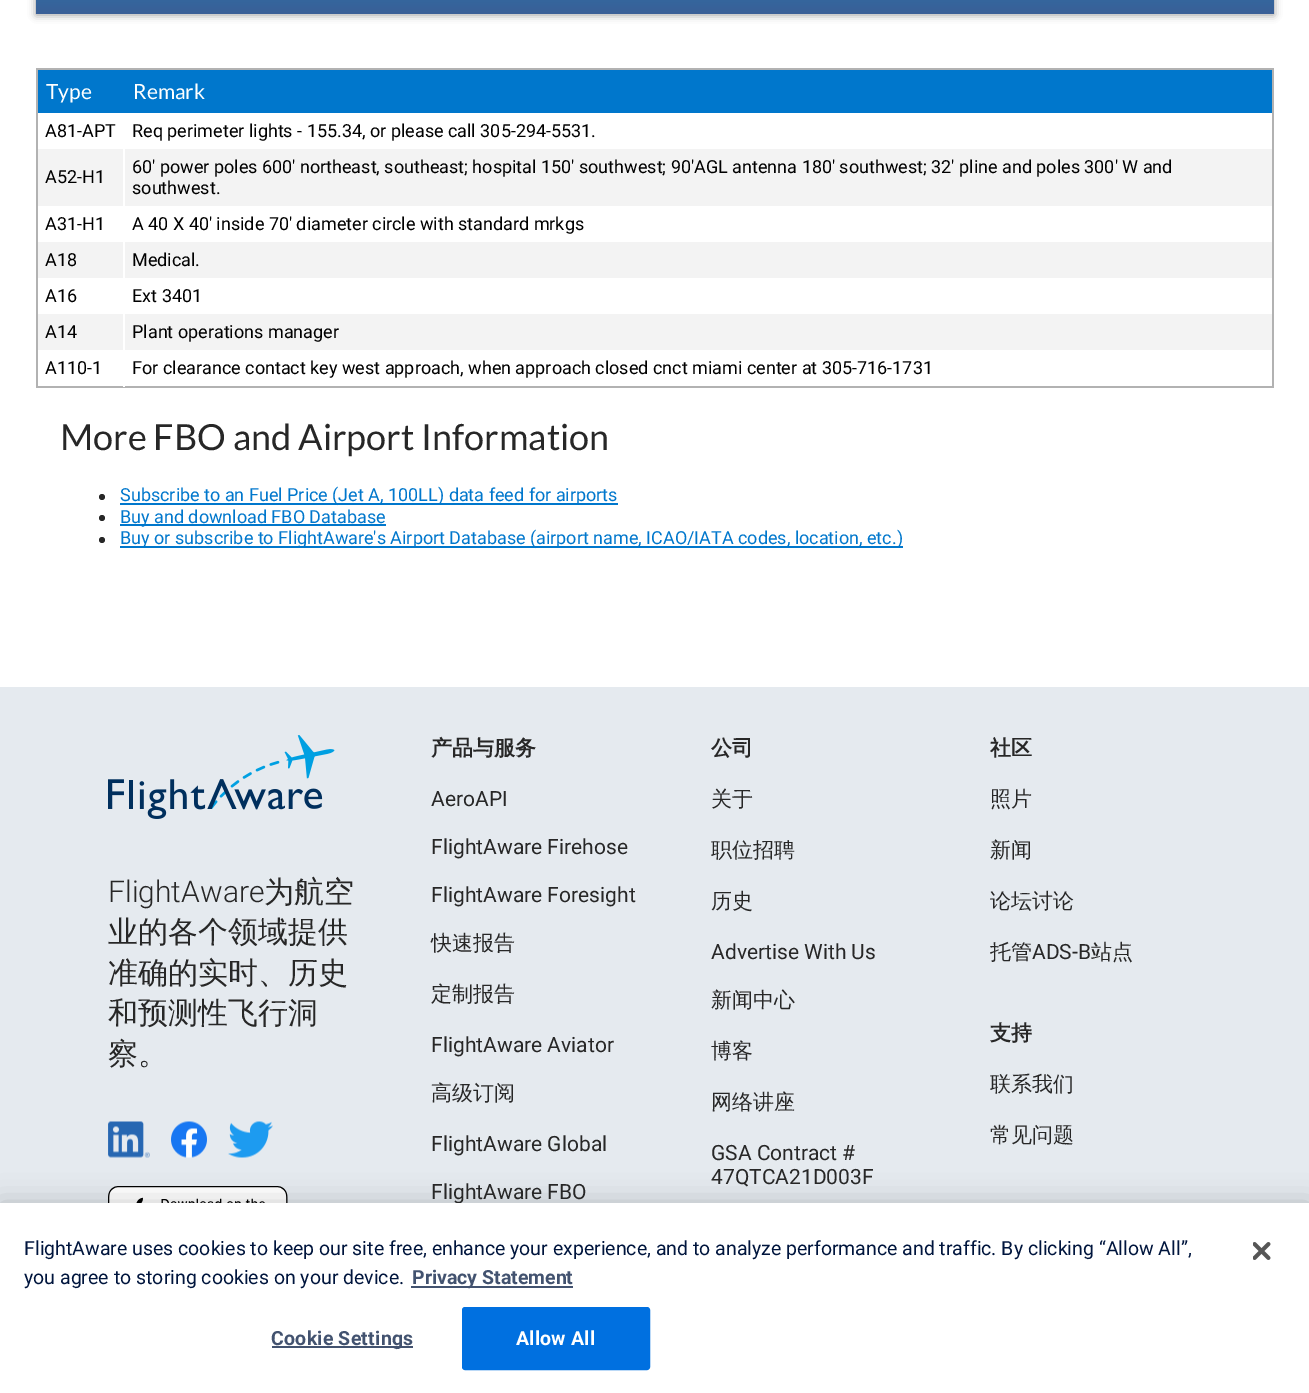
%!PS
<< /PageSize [1309 1393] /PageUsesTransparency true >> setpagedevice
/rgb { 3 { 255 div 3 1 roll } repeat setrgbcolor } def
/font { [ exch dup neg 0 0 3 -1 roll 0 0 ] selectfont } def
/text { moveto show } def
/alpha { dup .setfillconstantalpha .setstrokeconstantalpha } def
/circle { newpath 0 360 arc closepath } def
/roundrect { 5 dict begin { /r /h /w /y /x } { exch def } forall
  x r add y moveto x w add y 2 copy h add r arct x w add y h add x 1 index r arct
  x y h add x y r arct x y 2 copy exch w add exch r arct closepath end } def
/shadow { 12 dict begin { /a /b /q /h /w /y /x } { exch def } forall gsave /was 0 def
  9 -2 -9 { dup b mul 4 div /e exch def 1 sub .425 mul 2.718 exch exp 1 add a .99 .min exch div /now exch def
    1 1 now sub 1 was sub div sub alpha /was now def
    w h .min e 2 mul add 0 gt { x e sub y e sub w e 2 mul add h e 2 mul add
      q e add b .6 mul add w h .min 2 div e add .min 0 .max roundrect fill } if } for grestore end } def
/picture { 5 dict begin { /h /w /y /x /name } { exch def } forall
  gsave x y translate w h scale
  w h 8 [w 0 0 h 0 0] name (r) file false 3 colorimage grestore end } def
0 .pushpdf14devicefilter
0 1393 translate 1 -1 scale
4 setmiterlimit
255 255 255 rgb
0 0 1309 1393 rectfill
50 50 50 rgb
36 -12 1238 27 0 4 0.5 shadow
gsave 36 0 moveto 1238 0 rlineto 0 14 rlineto -1238 0 rlineto closepath clip newpath
<< /ShadingType 2 /ColorSpace /DeviceRGB /Coords [36 -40 36 14] /Extend [true true] /Function << /FunctionType 2 /Domain [0 1] /C0 [0.149 0.482 0.682] /C1 [0.227 0.373 0.592] /N 1 >> >> shfill grestore
178 178 178 rgb
36 68 1238 2 rectfill
1272 68 2 319 rectfill
36 386 1238 2 rectfill
36 68 2 319 rectfill
0 119 204 rgb
38 70 1234 43 rectfill
243 243 243 rgb
38 149 1234 57 rectfill
255 255 255 rgb
123 149 2 58 rectfill
243 243 243 rgb
38 242 1234 36 rectfill
255 255 255 rgb
123 242 2 37 rectfill
243 243 243 rgb
38 314 1234 36 rectfill
255 255 255 rgb
123 314 2 37 rectfill
123 386 2 1 rectfill
39 39 39 rgb
102 497 3 circle fill
0 119 204 rgb
120 503 498 2 rectfill
39 39 39 rgb
102 518 3 circle fill
0 119 204 rgb
120 524 266 2 rectfill
39 39 39 rgb
102 540 3 circle fill
0 119 204 rgb
120 546 783 2 rectfill
229 234 239 rgb
0 687 1309 516 rectfill
(img_01.rgb) 108 735 227 84 picture
(img_02.rgb) 108 1121 42 37 picture
(img_03.rgb) 171 1121 36 37 picture
(img_04.rgb) 228 1121 45 37 picture
(img_05.rgb) 108 1186 180 17 picture
0 0 0 rgb
0 1203 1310 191 0 13.5 0.2 shadow
/Lato-Regular 21 font
255 255 255 rgb
(Type) 46 99 text
(Remark) 133 99 text
/Roboto-Regular 18 font
0 0 0 rgb
(A81-APT) 45 137 text
(Req perimeter lights - 155.34, or please call 305-294-5531.) 132 137 text
(A52-H1) 45 183 text
(60' power poles 600' northeast, southeast; hospital 150' southwest; 90'AGL antenna 180' southwest; 32' pline and poles 300' W and) 132 173 text
(southwest.) 132 194 text
(A31-H1) 45 230 text
(A 40 X 40' inside 70' diameter circle with standard mrkgs) 132 230 text
(A18) 45 266 text
(Medical.) 132 266 text
(A16) 45 302 text
(Ext 3401) 132 302 text
(A14) 45 338 text
(Plant operations manager) 132 338 text
(A110-1) 45 374 text
(For clearance contact key west approach, when approach closed cnct miami center at 305-716-1731) 132 374 text
/Lato-Regular 36 font
39 39 39 rgb
(More FBO and Airport Information) 60 450 text
/Roboto-Regular 18 font
0 119 204 rgb
(Subscribe to an Fuel Price \(Jet A, 100LL\) data feed for airports) 120 501 text
(Buy and download FBO Database) 120 523 text
(Buy or subscribe to FlightAware's Airport Database \(airport name, ICAO/IATA codes, location, etc.\)) 120 544 text
/Roboto-Light 30 font
39 39 39 rgb
(FlightAware) 108 902 text
/WenQuanYiZenHei-Medium 30 font
(为航空) 264 902 text
(业的各个领域提供) 108 942 text
(准确的实时、历史) 108 983 text
(和预测性飞行洞) 108 1023 text
(察。) 108 1064 text
/WenQuanYiZenHei-Bold 21 font
(产品与服务) 431 755 text
/Roboto-Regular 21 font
(AeroAPI) 431 806 text
(FlightAware Firehose) 431 854 text
(FlightAware Foresight) 431 902 text
/WenQuanYiZenHei-Medium 21 font
(快速报告) 431 950 text
(定制报告) 431 1001 text
/Roboto-Regular 21 font
(FlightAware Aviator) 431 1052 text
/WenQuanYiZenHei-Medium 21 font
(高级订阅) 431 1100 text
/Roboto-Regular 21 font
(FlightAware Global) 431 1151 text
(FlightAware FBO) 431 1199 text
/WenQuanYiZenHei-Bold 21 font
(公司) 711 755 text
/WenQuanYiZenHei-Medium 21 font
(关于) 711 806 text
(职位招聘) 711 857 text
(历史) 711 908 text
/Roboto-Regular 21 font
(Advertise With Us) 711 959 text
/WenQuanYiZenHei-Medium 21 font
(新闻中心) 711 1007 text
(博客) 711 1058 text
(网络讲座) 711 1109 text
/Roboto-Regular 21 font
(GSA Contract #) 711 1160 text
(47QTCA21D003F) 711 1184 text
/WenQuanYiZenHei-Bold 21 font
(社区) 990 755 text
/WenQuanYiZenHei-Medium 21 font
(照片) 990 806 text
(新闻) 990 857 text
(论坛讨论) 990 908 text
(托管) 990 959 text
/Roboto-Regular 21 font
(ADS-B) 1032 959 text
/WenQuanYiZenHei-Medium 21 font
(站点) 1091 959 text
/WenQuanYiZenHei-Bold 21 font
(支持) 990 1040 text
/WenQuanYiZenHei-Medium 21 font
(联系我们) 990 1091 text
(常见问题) 990 1142 text
255 255 255 rgb
0 1203 1309 190 rectfill
/Roboto-Regular 19.5 font
0 21 61 rgb
(FlightAware uses cookies to keep our site free, enhance your experience, and to analyze performance and traffic. By clicking “Allow All”,) 24 1255 text
(you agree to storing cookies on your device.) 24 1284 text
66 82 111 rgb
411 1286 162 2 rectfill
/Roboto-Bold 19.5 font
(Privacy Statement) 412 1284 text
272 1346 141 2 rectfill
271 1345 moveto 0.25 0 (Cookie Settings) ashow
0 112 224 rgb
463 1308 186 61 2 roundrect gsave fill grestore
2 setlinewidth
stroke
255 255 255 rgb
516 1345 moveto 0.25 0 (Allow All) ashow
(img_06.rgb) 1253 1242 18 18 picture
.poppdf14devicefilter showpage
